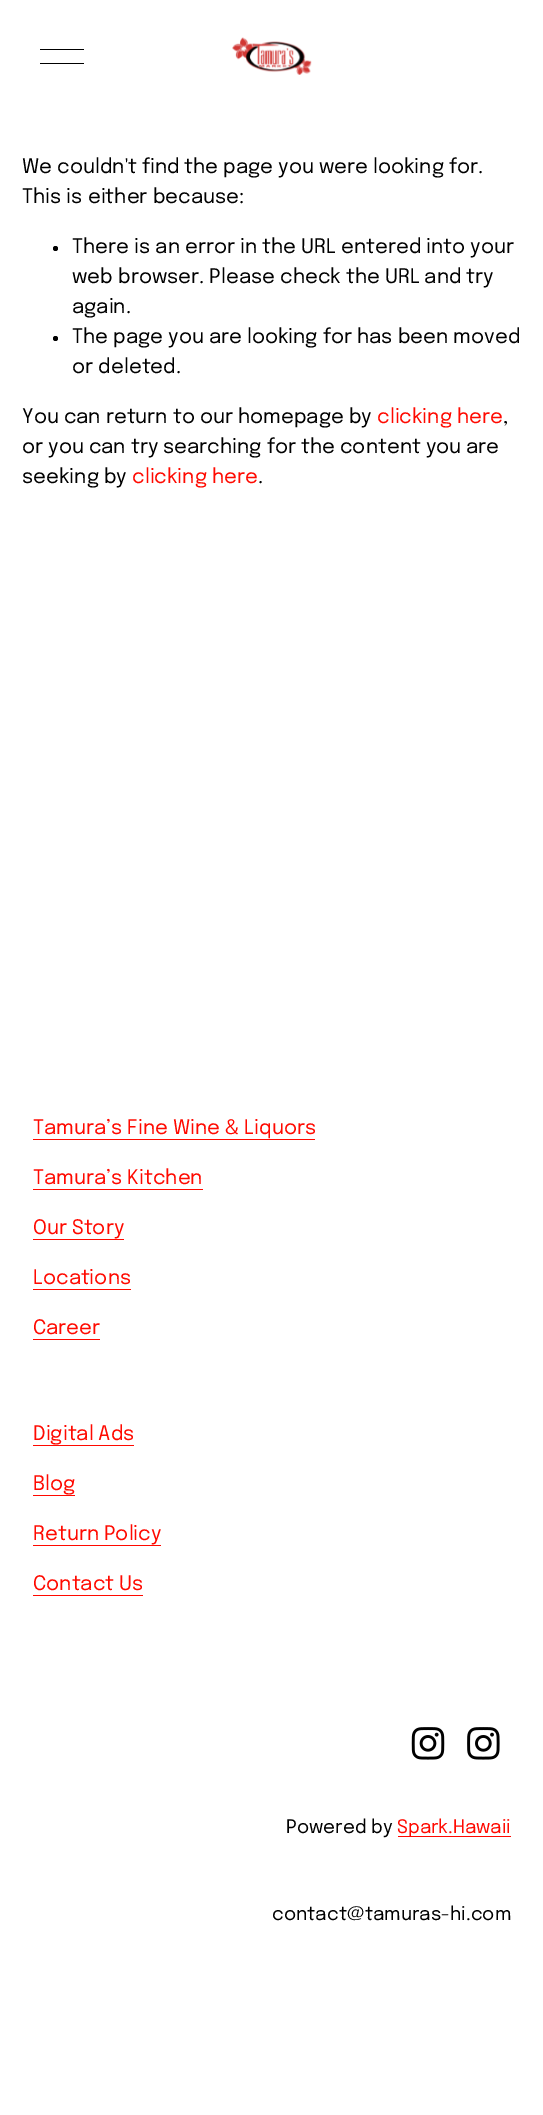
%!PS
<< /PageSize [543 2115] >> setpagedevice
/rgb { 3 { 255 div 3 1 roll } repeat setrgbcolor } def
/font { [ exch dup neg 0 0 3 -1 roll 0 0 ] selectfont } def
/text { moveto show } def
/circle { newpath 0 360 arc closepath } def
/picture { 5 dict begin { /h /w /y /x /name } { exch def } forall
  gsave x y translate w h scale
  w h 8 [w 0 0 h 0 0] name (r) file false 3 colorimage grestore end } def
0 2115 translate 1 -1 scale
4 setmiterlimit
255 255 255 rgb
0 0 543 2115 rectfill
0 0 0 rgb
40 49 44 1 rectfill
40 63 44 1 rectfill
(img_01.rgb) 232 37 80 38 picture
55.5 248.5 2.5 circle fill
55.5 338.5 2.5 circle fill
255 9 0 rgb
33 1139 282 1 rectfill
33 1189 170 1 rectfill
33 1239 91 1 rectfill
33 1289 98 1 rectfill
33 1339 67 1 rectfill
33 1445 101 1 rectfill
33 1495 42 1 rectfill
33 1545 128 1 rectfill
33 1595 110 1 rectfill
(img_02.rgb) 411 1727 34 33 picture
(img_03.rgb) 467 1727 33 33 picture
398 1836 113 1 rectfill
/Epilogue-Regular 20 font
0 0 0 rgb
(We couldn't find the page you were looking for.) 22 173 text
(This is either because:) 22 203 text
(There is an error in the URL entered into your) 72 253 text
(web browser. Please check the URL and try) 72 283 text
(again.) 72 313 text
(The page you are looking for has been moved) 72 343 text
(or deleted.) 72 373 text
(You can return to our homepage by) 22 423 text
255 9 0 rgb
(clicking here) 377 423 text
0 0 0 rgb
(,) 503 423 text
(or you can try searching for the content you are) 22 453 text
(seeking by) 22 483 text
255 9 0 rgb
(clicking here) 132 483 text
0 0 0 rgb
(.) 258 483 text
255 9 0 rgb
(Tamura’s Fine Wine & Liquors) 33 1134 text
(Tamura’s Kitchen) 33 1184 text
(Our Story) 33 1234 text
(Locations) 33 1284 text
(Career) 33 1334 text
(Digital Ads) 33 1440 text
(Blog) 33 1490 text
(Return Policy) 33 1540 text
(Contact Us) 33 1590 text
/Epilogue-Regular 18.6 font
0 0 0 rgb
(Powered by) 286 1833 text
255 9 0 rgb
(Spark.Hawaii) 397 1833 text
0 0 0 rgb
(contact@tamuras-hi.com) 272 1920 text
showpage
